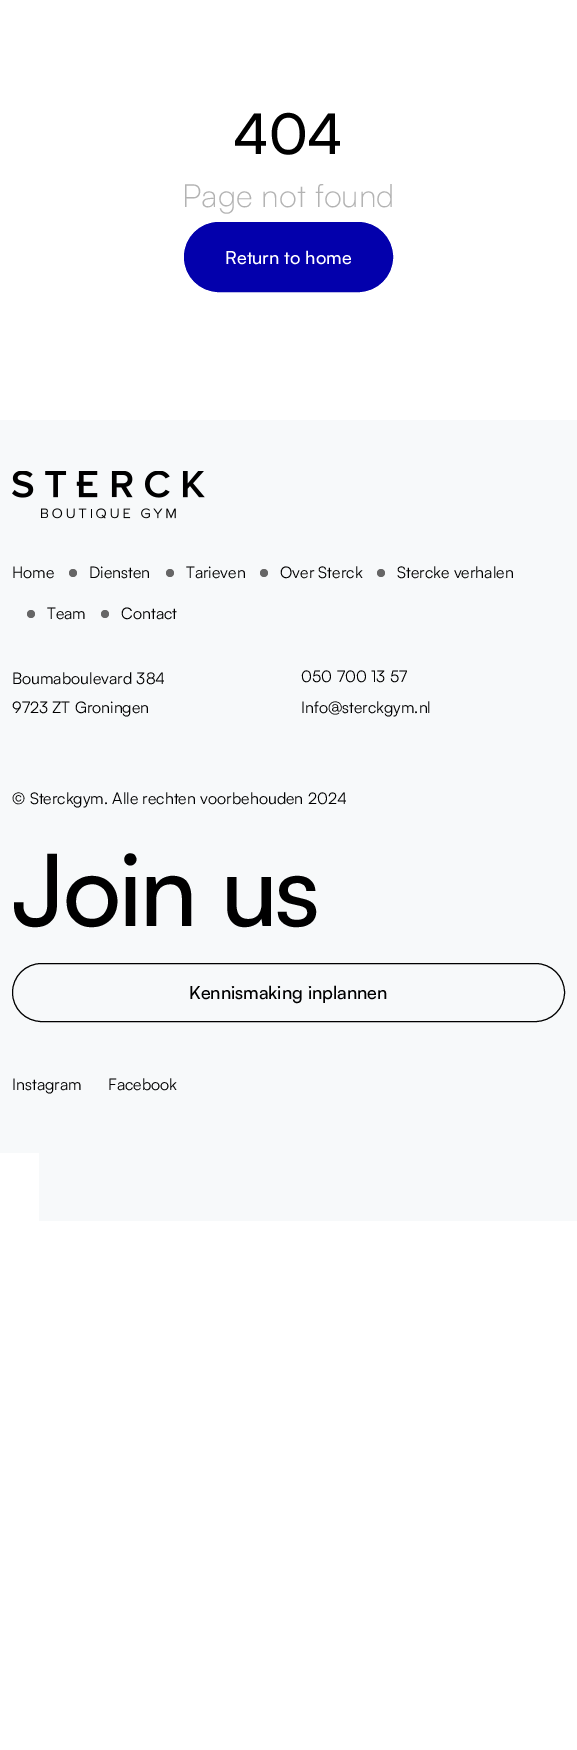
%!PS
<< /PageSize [577 1750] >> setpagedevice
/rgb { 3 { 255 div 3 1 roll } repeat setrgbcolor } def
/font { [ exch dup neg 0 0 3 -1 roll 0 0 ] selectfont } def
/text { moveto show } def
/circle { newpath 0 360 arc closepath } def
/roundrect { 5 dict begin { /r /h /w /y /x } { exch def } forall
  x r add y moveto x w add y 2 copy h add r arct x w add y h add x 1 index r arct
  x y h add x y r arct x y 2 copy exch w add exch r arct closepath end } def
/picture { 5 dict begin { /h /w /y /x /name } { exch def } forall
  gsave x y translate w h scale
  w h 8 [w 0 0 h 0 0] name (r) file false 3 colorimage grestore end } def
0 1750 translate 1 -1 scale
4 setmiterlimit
255 255 255 rgb
0 0 577 1750 rectfill
3 0 172 rgb
184.5 222.5 208 69 34.5 roundrect gsave fill grestore
stroke
247 249 250 rgb
39 420 538 801 rectfill
0 420 39 733 rectfill
(img_01.rgb) 12 471 193 48 picture
102 102 102 rgb
73 573 4 circle fill
170 573 4 circle fill
264 573 4 circle fill
381 573 4 circle fill
31 614 4 circle fill
105 614 4 circle fill
0 0 0 rgb
12.5 963.5 552 58 29 roundrect stroke
/Satoshi-Medium 56 font
(404) 233 154 text
/Satoshi-Light 32 font
179 179 179 rgb
(Page not found) 182 207 text
/Satoshi-Medium 18 font
255 255 255 rgb
(Return to home) 225 264 text
/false-Regular 16 font
0 0 0 rgb
(Home) 12 578 text
(Diensten) 89 578 text
(Tarieven) 186 578 text
(Over Sterck) 280 578 text
(Stercke verhalen) 397 578 text
(Team) 47 619 text
(Contact) 121 619 text
(Boumaboulevard 384) 12 684 text
(9723 ZT Groningen) 12 713 text
(050 700 13 57) 301 682 text
(Info@sterckgym.nl) 301 713 text
(© Sterckgym. Alle rechten voorbehouden 2024) 12 804 text
/Satoshi-Medium 100 font
12 926 moveto -2 0 (Join us) ashow
/Satoshi-Medium 18 font
(Kennismaking inplannen) 189 999 text
/false-Regular 16 font
(Instagram) 12 1090 text
(Facebook) 108 1090 text
showpage
